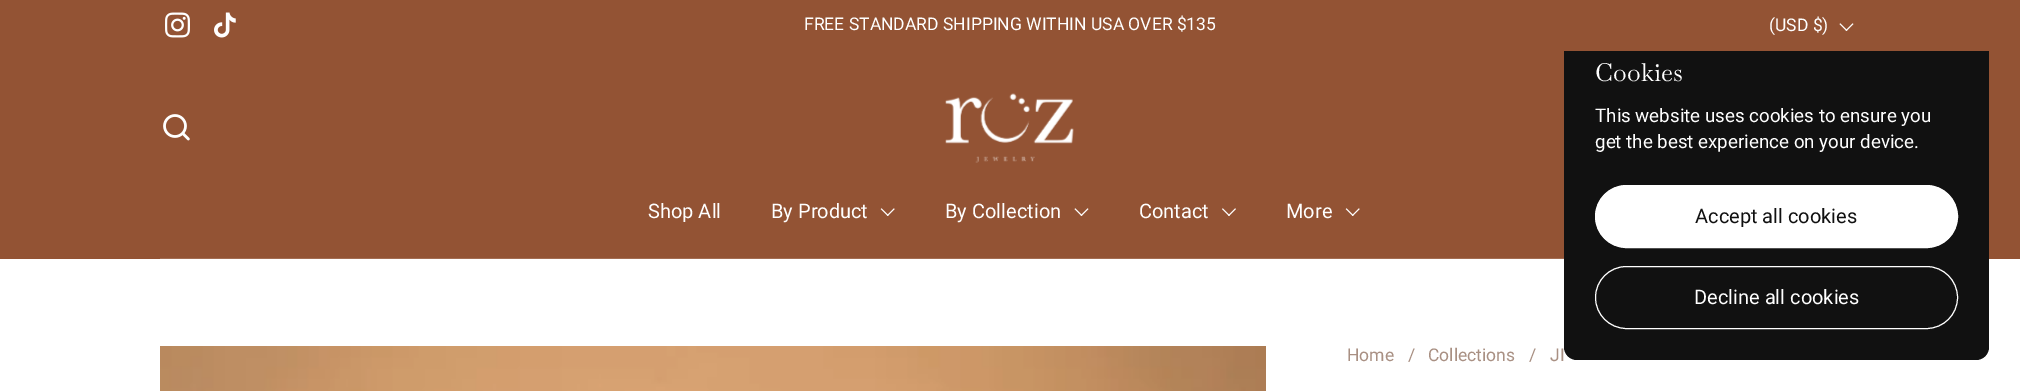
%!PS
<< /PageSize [2020 391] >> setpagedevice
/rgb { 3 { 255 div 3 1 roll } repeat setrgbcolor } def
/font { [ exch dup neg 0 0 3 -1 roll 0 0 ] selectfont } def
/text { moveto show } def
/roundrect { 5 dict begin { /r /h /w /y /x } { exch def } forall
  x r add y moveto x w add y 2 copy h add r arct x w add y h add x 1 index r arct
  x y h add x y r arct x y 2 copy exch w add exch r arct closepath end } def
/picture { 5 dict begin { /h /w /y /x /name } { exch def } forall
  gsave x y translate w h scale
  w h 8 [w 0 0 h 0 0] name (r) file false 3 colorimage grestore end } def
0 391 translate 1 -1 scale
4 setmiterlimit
255 255 255 rgb
0 0 2020 391 rectfill
147 83 52 rgb
0 51 2020 208 rectfill
17 17 17 rgb
1564 29 425 331 13 roundrect fill
147 83 52 rgb
0 0 2020 51 rectfill
(img_01.rgb) 165 12 25 26 picture
(img_02.rgb) 214 12 22 26 picture
(img_03.rgb) 1839 23 15 8 picture
(img_04.rgb) 163 114 27 27 picture
(img_05.rgb) 945 93 129 70 picture
(img_06.rgb) 880 208 15 8 picture
(img_03.rgb) 1074 208 15 8 picture
(img_07.rgb) 1222 208 14 8 picture
(img_06.rgb) 1345 208 15 8 picture
163 109 82 rgb
160 258 1404 1 rectfill
255 255 255 rgb
1595.5 185.5 362 62 31 roundrect gsave fill grestore
stroke
1595.5 266.5 362 62 31 roundrect stroke
(img_08.rgb) 160 346 1106 45 picture
/Roboto-Regular 17.5 font
(FREE STANDARD SHIPPING WITHIN USA OVER $135) 804 30 text
(\(USD $\)) 1769 31 text
/Roboto-Regular 20 font
(Shop All) 648 218 text
(By Product) 771 218 text
(By Collection) 945 218 text
(Contact) 1139 218 text
(More) 1286 218 text
/Baskervville-Regular 25 font
(Cookies) 1595 81 text
/Roboto-Regular 18.75 font
(This website uses cookies to ensure you) 1595 122 text
(get the best experience on your device.) 1595 148 text
/Roboto-Regular 20 font
17 17 17 rgb
(Accept all cookies) 1695 223 text
255 255 255 rgb
(Decline all cookies) 1694 304 text
/Roboto-Regular 17.5 font
169 144 131 rgb
(Home) 1347 361 text
(/) 1408 361 text
(Collections) 1428 361 text
(/) 1529 361 text
(JI) 1550 361 text
showpage
